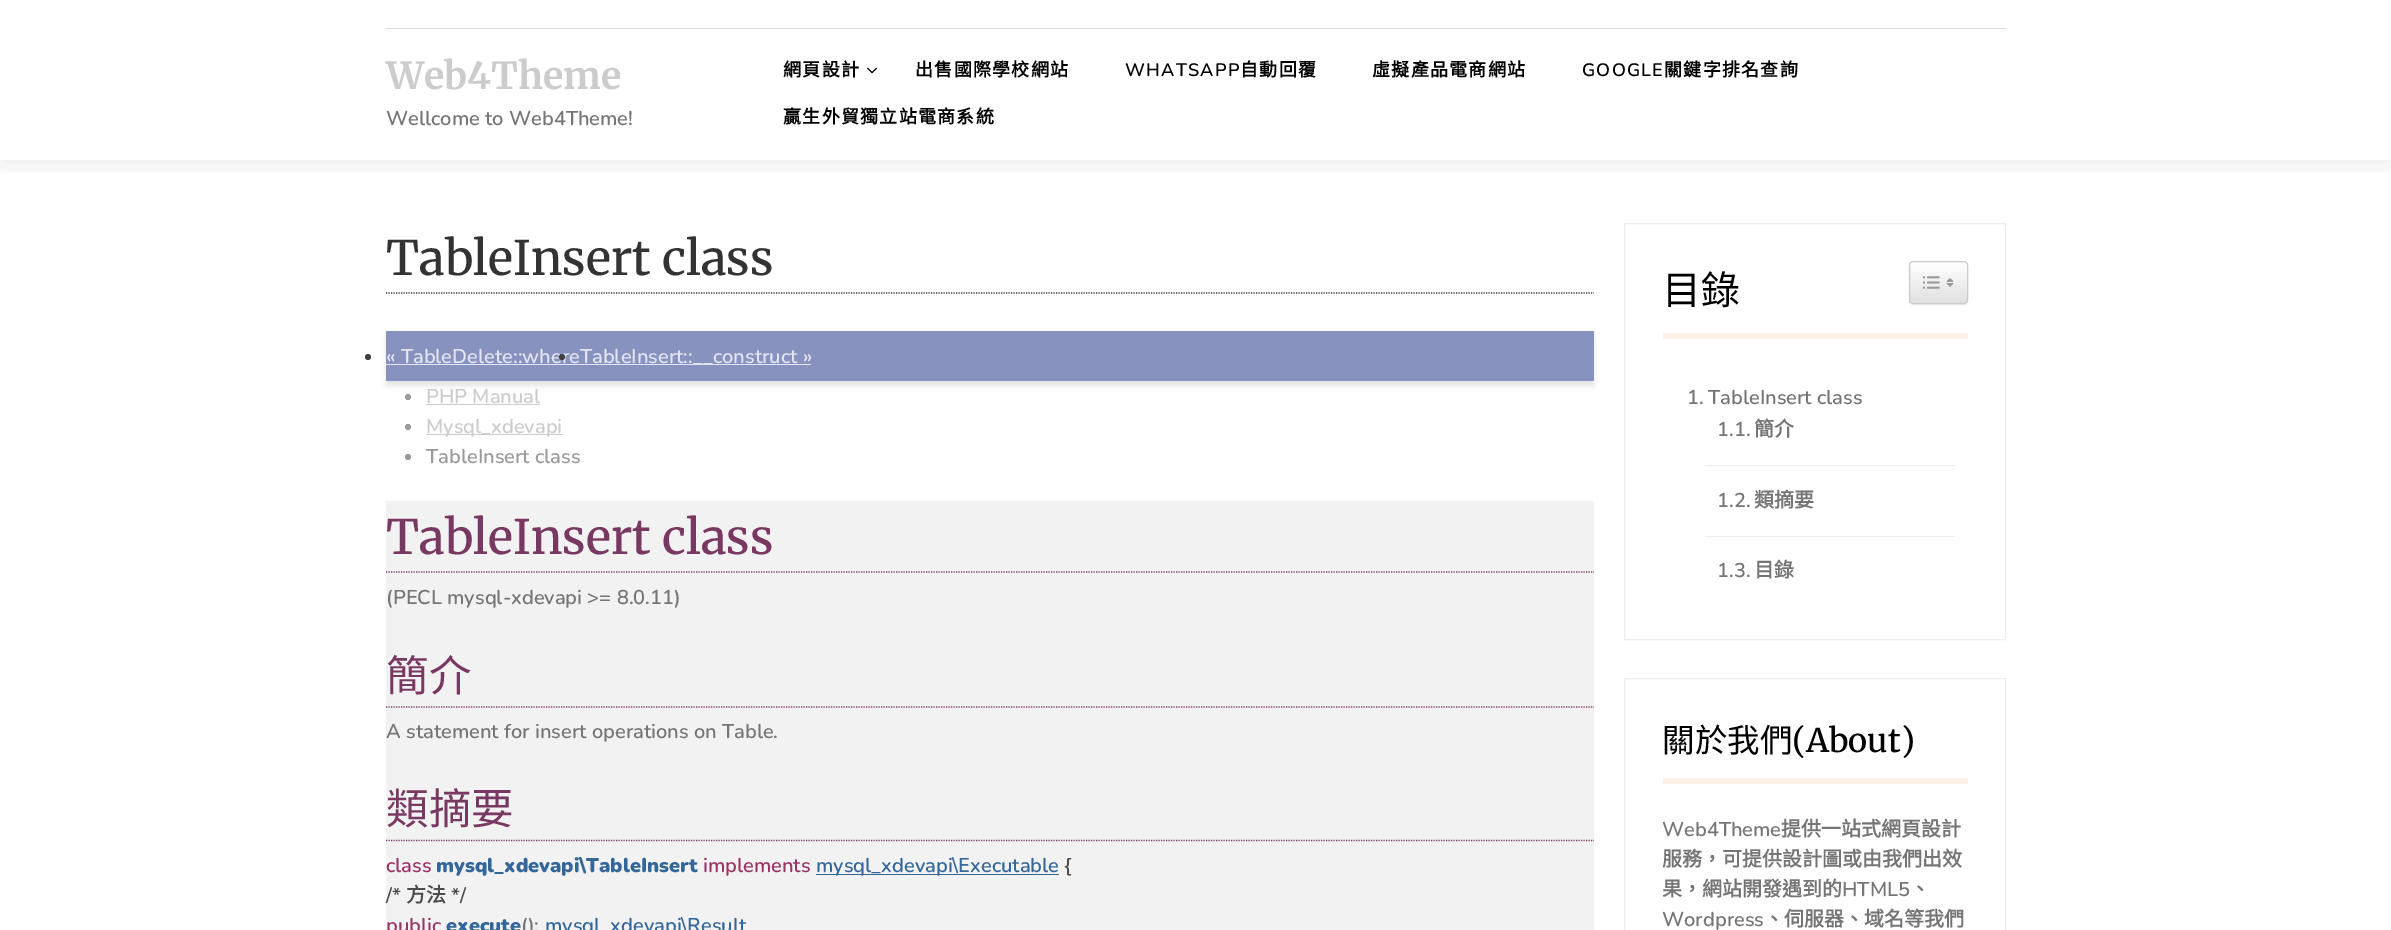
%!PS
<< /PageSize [2391 930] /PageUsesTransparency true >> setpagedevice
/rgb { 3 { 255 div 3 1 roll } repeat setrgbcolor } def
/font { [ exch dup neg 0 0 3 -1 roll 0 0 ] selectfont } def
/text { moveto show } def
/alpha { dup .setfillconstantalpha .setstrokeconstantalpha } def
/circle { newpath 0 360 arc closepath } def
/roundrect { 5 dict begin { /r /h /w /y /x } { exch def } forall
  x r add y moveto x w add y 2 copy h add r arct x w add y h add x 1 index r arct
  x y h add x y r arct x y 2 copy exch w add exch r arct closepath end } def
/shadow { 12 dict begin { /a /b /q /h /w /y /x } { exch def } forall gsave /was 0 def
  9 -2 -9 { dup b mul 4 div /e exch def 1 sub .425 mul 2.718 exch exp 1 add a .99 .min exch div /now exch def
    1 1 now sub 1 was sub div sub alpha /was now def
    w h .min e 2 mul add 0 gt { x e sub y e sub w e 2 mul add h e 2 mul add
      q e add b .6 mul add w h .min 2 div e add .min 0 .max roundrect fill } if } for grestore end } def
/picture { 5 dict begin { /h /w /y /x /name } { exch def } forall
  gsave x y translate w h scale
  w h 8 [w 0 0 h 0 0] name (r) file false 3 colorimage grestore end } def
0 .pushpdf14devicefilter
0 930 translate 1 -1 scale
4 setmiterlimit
255 255 255 rgb
0 0 2391 930 rectfill
gsave
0 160 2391 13 rectclip
0 0 0 rgb
0 0 2391 160 0 15 0.1 shadow
grestore
221 221 221 rgb
386 28 1620 1 rectfill
(img_01.rgb) 867 67 10 7 picture
51 51 51 rgb
1.2 setlinewidth
[1.25 1.25] 0 setdash
386 293 moveto 1208 0 rlineto stroke
153 153 153 rgb
408 397 3 circle fill
0 0 0 rgb
386 336 1208 50 0 2.5 0.1 shadow
136 146 191 rgb
386 331 1208 50 rectfill
64 64 64 rgb
368 357 3 circle fill
226 228 239 rgb
386 364 425 1 rectfill
204 204 204 rgb
426 404 114 1 rectfill
153 153 153 rgb
408 427 3 circle fill
204 204 204 rgb
426 434 137 1 rectfill
153 153 153 rgb
408 457 3 circle fill
242 242 242 rgb
386 501 1208 429 rectfill
121 56 98 rgb
386 572 moveto 1208 0 rlineto stroke
386 707 moveto 1208 0 rlineto stroke
386 840.5 moveto 1208 0 rlineto stroke
51 102 153 rgb
816 874 243 1 rectfill
238 238 238 rgb
1 setlinewidth
[] 0 setdash
1624.5 223.5 381 416 rectstroke
0 0 0 rgb
1909 263 59 42 4 0.5 0.07 shadow
255 255 255 rgb
1909 261 59 43 4 roundrect fill
gsave
1909 261 59 43 4 roundrect clip newpath
gsave 1909 263 moveto 59 0 rlineto 0 40 rlineto -59 0 rlineto closepath clip newpath
<< /ShadingType 2 /ColorSpace /DeviceRGB /Coords [1938 263 1938 303] /Extend [true true] /Function << /FunctionType 2 /Domain [0 1] /C0 [1 1 1] /C1 [0.878 0.878 0.878] /N 1 >> >> shfill grestore
grestore
204 204 204 rgb
1909.5 261.5 58 42 3.5 roundrect stroke
(img_02.rgb) 1922 276 18 13 picture
(img_03.rgb) 1946 278 8 9 picture
255 240 234 rgb
1663 333 305 6 rectfill
238 238 238 rgb
1705 465 250 1 rectfill
1705 536 250 1 rectfill
1624.5 678.5 381 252 rectstroke
255 240 234 rgb
1663 778 305 6 rectfill
/Merriweather-Bold 37.5 font
204 204 204 rgb
(Web4Theme) 386 89 text
/Nunito-SemiBold 20 font
117 117 117 rgb
(Wellcome to Web4Theme!) 386 125 text
/NotoSansCJKTC-Bold 18 font
0 0 0 rgb
783 76 moveto 1.25 0 (網頁設計) ashow
915 76 moveto 1.25 0 (出售國際學校網站) ashow
/Nunito-SemiBold 18 font
1125 76 moveto 1.25 0 (WHATSAPP) ashow
/NotoSansCJKTC-Bold 18 font
1240 76 moveto 1.25 0 (自動回覆) ashow
1372 76 moveto 1.25 0 (虛擬產品電商網站) ashow
/Nunito-SemiBold 18 font
1582 76 moveto 1.25 0 (GOOGLE) ashow
/NotoSansCJKTC-Bold 18 font
1664 76 moveto 1.25 0 (關鍵字排名查詢) ashow
783 123 moveto 1.25 0 (贏生外貿獨立站電商系統) ashow
/Merriweather-Medium 47.5 font
51 51 51 rgb
(TableInsert class) 386 275 text
/Nunito-SemiBold 20 font
226 228 239 rgb
(« TableDelete::whereTableInsert::__construct ») 386 363 text
64 64 64 rgb
562 357 3 circle fill
204 204 204 rgb
(PHP Manual) 426 403 text
(Mysql_xdevapi) 426 433 text
153 153 153 rgb
(TableInsert class) 426 463 text
/Merriweather-Medium 47.5 font
121 56 98 rgb
(TableInsert class) 386 554 text
/Nunito-SemiBold 20 font
117 117 117 rgb
(\(PECL mysql-xdevapi >= 8.0.11\)) 386 604 text
/NotoSansCJKTC-Regular 42.5 font
121 56 98 rgb
(簡介) 386 691 text
/Nunito-SemiBold 20 font
117 117 117 rgb
(A statement for insert operations on Table.) 386 738 text
/NotoSansCJKTC-Regular 42.5 font
121 56 98 rgb
(類摘要) 386 824 text
/Nunito-SemiBold 20 font
153 51 102 rgb
(class) 386 872 text
/Nunito-Black 20 font
51 102 153 rgb
(mysql_xdevapi\\TableInsert) 436 872 text
/Nunito-SemiBold 20 font
153 51 102 rgb
(implements) 703 872 text
51 102 153 rgb
(mysql_xdevapi\\Executable) 816 872 text
77 77 77 rgb
({) 1064 872 text
(/*) 386 902 text
/NotoSansCJKTC-Bold 20 font
(方法) 406 902 text
/Nunito-SemiBold 20 font
(*/) 451 902 text
153 51 102 rgb
(public) 386 932 text
/Nunito-Black 20 font
51 102 153 rgb
(execute) 446 932 text
/Nunito-SemiBold 20 font
117 117 117 rgb
(\(\):) 521 932 text
51 102 153 rgb
(mysql_xdevapi\\Result) 545 932 text
/NotoSansCJKTC-Regular 39 font
0 0 0 rgb
(目錄) 1662 304 text
/Nunito-SemiBold 20 font
117 117 117 rgb
(1.) 1687 404 text
(TableInsert class) 1708 404 text
(1.1.) 1717 436 text
/NotoSansCJKTC-Bold 20 font
(簡介) 1754 436 text
/Nunito-SemiBold 20 font
(1.2.) 1717 507 text
/NotoSansCJKTC-Bold 20 font
(類摘要) 1754 507 text
/Nunito-SemiBold 20 font
(1.3.) 1717 577 text
/NotoSansCJKTC-Bold 20 font
(目錄) 1754 577 text
/NotoSansCJKTC-Regular 32.5 font
0 0 0 rgb
(關於我們) 1662 752 text
/Merriweather-Medium 32.5 font
(\(About\)) 1792 752 text
/Nunito-SemiBold 20 font
117 117 117 rgb
(Web4Theme) 1662 836 text
/NotoSansCJKTC-Bold 20 font
(提供一站式網頁設計) 1781 836 text
(服務，可提供設計圖或由我們出效) 1662 866 text
(果，網站開發遇到的) 1662 896 text
/Nunito-SemiBold 20 font
(HTML5) 1842 896 text
/NotoSansCJKTC-Bold 20 font
(、) 1910 896 text
/Nunito-SemiBold 20 font
(Wordpress) 1662 926 text
/NotoSansCJKTC-Bold 20 font
(、伺服器、域名等我們) 1764 926 text
.poppdf14devicefilter showpage
